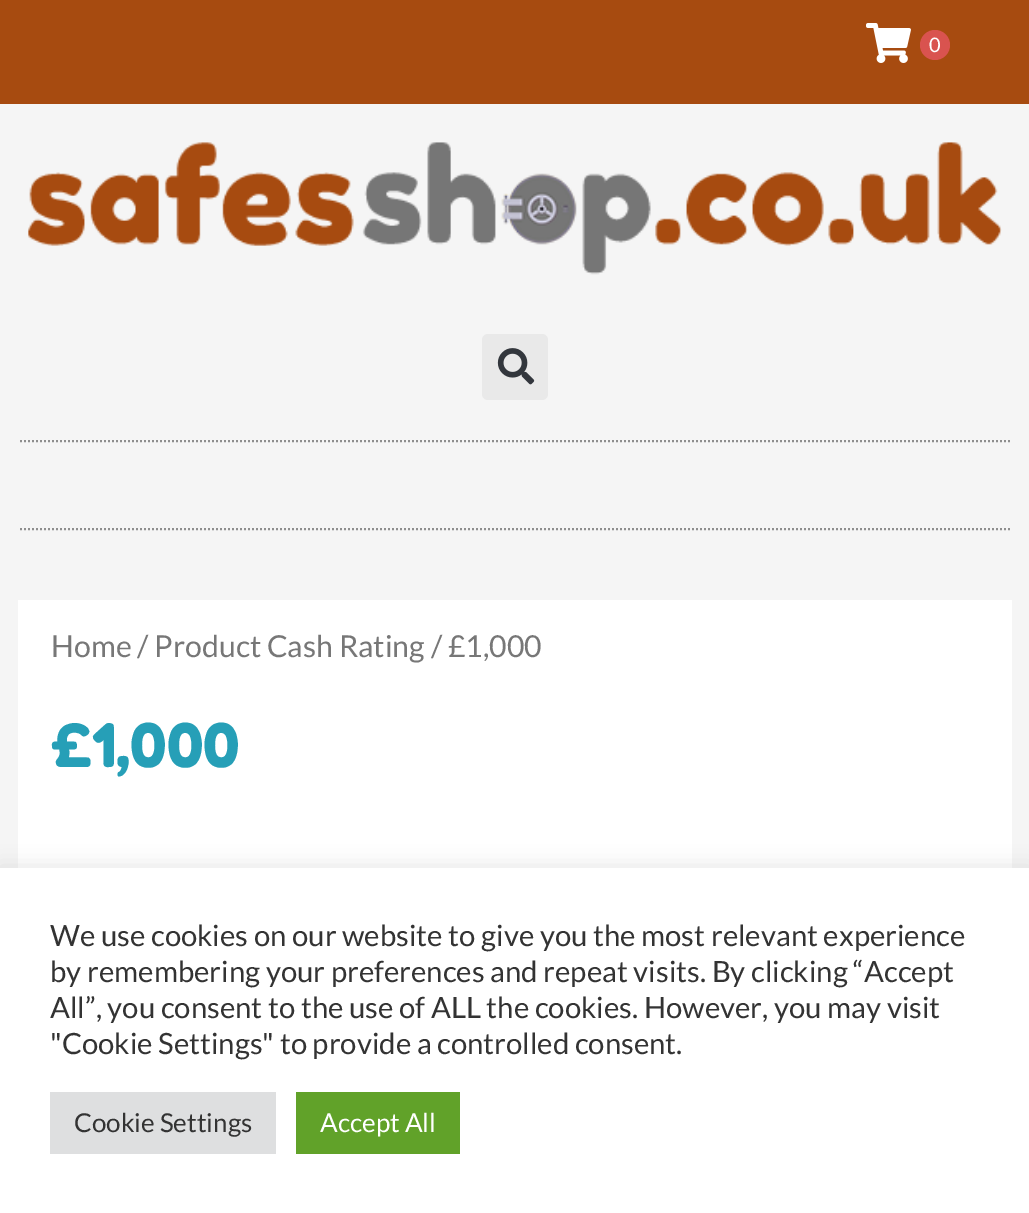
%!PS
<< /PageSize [1029 1213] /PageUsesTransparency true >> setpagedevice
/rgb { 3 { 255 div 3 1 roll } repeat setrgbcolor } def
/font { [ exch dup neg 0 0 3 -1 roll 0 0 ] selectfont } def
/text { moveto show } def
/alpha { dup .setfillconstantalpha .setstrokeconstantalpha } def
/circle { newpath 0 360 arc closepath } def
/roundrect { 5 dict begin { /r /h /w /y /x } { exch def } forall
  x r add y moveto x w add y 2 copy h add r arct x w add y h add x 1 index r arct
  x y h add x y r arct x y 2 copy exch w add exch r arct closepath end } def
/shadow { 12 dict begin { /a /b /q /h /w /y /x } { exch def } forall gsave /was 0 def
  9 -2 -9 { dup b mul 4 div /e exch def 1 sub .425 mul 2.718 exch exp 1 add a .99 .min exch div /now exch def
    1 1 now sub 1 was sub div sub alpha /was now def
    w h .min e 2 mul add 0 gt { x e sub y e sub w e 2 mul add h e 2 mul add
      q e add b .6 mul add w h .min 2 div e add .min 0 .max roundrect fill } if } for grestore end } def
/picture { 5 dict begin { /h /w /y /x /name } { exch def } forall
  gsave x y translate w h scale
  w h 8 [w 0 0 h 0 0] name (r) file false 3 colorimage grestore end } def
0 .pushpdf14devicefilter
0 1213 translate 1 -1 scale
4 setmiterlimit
245 245 245 rgb
0 0 1029 1213 rectfill
167 75 16 rgb
0 0 1029 104 rectfill
(img_01.rgb) 866 23 45 40 picture
217 83 79 rgb
935 45 15 circle fill
(img_02.rgb) 28 142 974 133 picture
233 233 233 rgb
482 334 66 66 6 roundrect fill
(img_03.rgb) 497 348 38 37 picture
142 142 142 rgb
2 setlinewidth
[2 2] 0 setdash
20 441 moveto 990 0 rlineto stroke
20 529 moveto 990 0 rlineto stroke
255 255 255 rgb
18 600 994 268 rectfill
172 171 171 rgb
0 866 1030 346 0 10 0.3 shadow
255 255 255 rgb
0 868 1029 345 rectfill
222 223 224 rgb
50 1092 226 62 rectfill
97 162 41 rgb
296 1092 164 62 rectfill
/Lato-Regular 20 font
255 255 255 rgb
(0) 929 52 text
/Lato-Regular 30.25 font
119 119 119 rgb
(Home / Product Cash Rating / £1,000) 51 657 text
/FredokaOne-Regular 60 font
38 159 183 rgb
(£1,000) 51 767 text
/Lato-Regular 29.3 font
51 51 51 rgb
(We use cookies on our website to give you the most relevant experience) 50 946 text
(by remembering your preferences and repeat visits. By clicking “Accept) 50 982 text
(All”, you consent to the use of ALL the cookies. However, you may visit) 50 1018 text
("Cookie Settings" to provide a controlled consent.) 50 1054 text
/Lato-Regular 26 font
(Cookie Settings) 74 1132 text
255 255 255 rgb
(Accept All) 320 1132 text
.poppdf14devicefilter showpage
